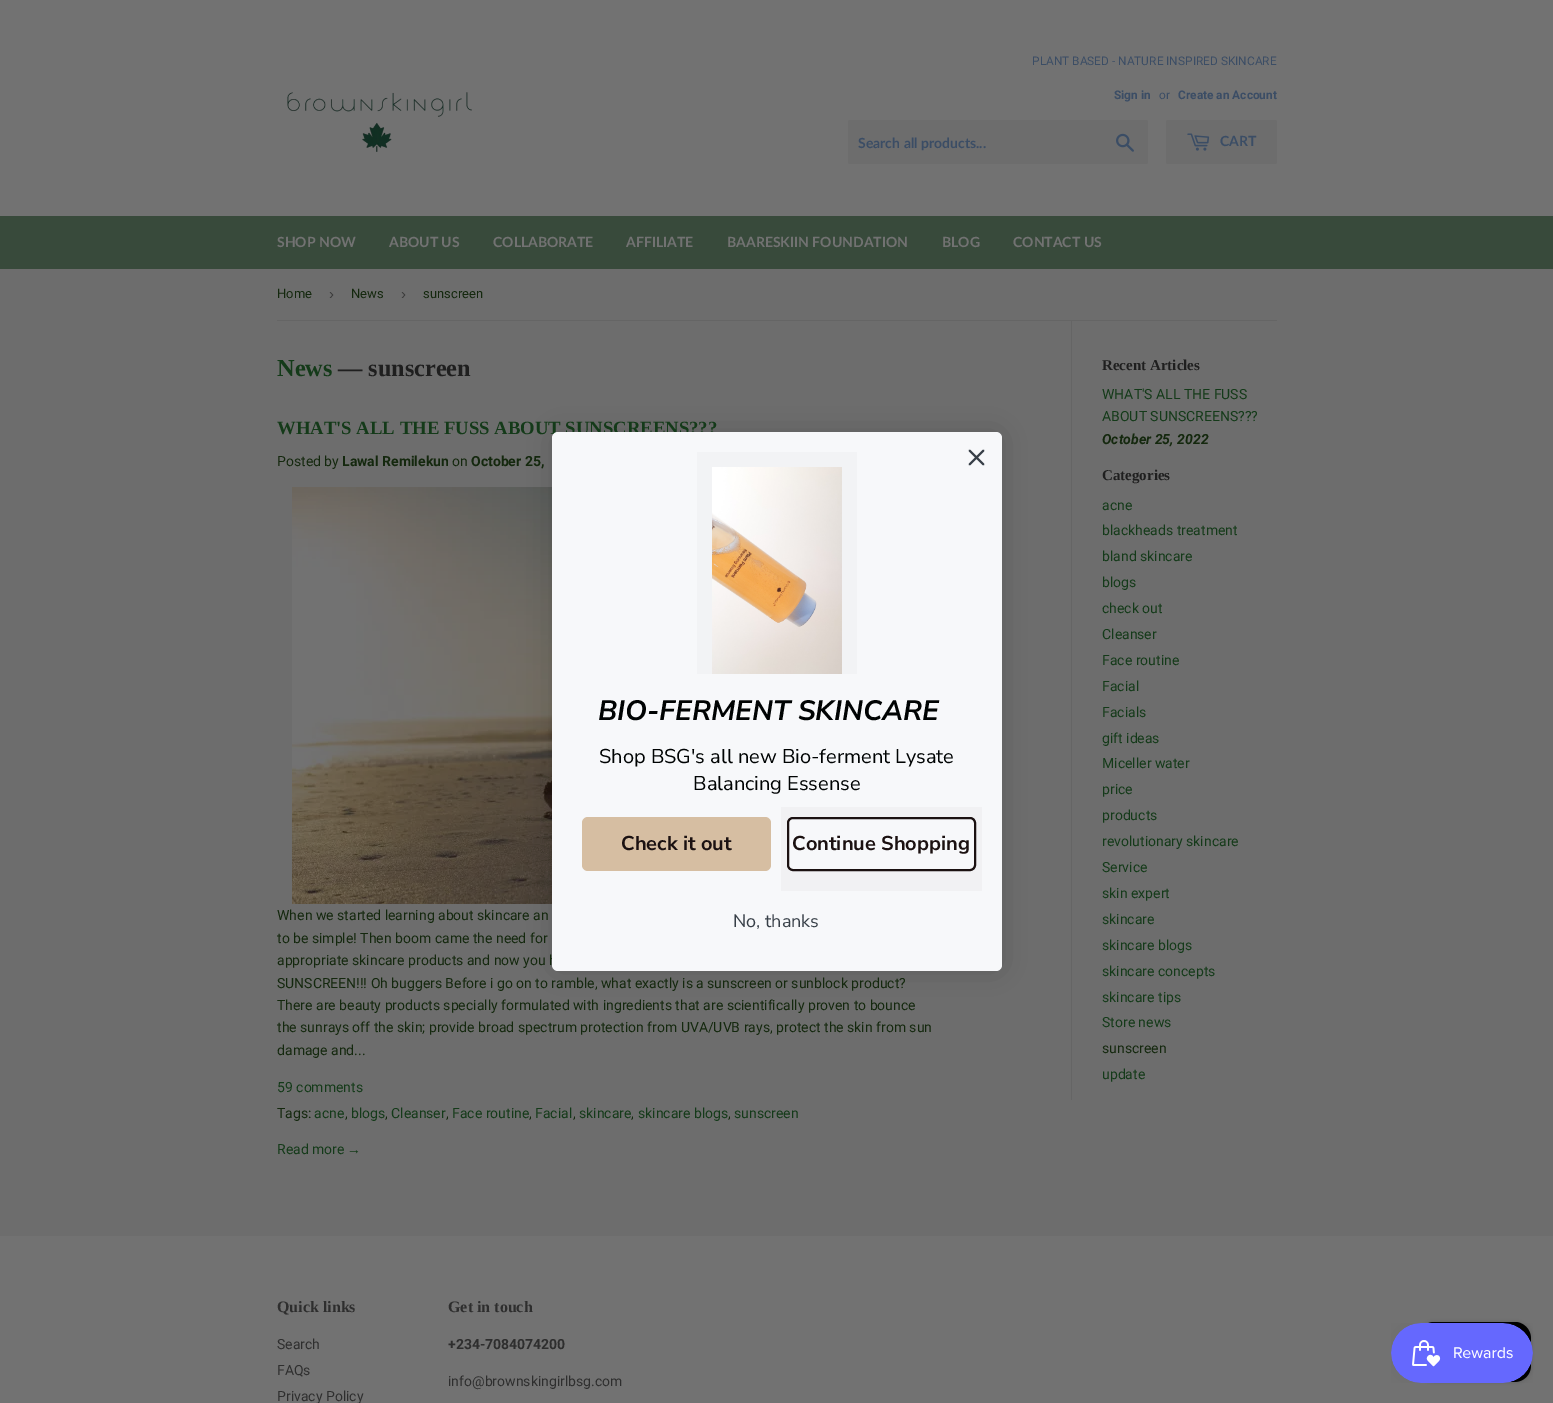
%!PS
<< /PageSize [1553 1403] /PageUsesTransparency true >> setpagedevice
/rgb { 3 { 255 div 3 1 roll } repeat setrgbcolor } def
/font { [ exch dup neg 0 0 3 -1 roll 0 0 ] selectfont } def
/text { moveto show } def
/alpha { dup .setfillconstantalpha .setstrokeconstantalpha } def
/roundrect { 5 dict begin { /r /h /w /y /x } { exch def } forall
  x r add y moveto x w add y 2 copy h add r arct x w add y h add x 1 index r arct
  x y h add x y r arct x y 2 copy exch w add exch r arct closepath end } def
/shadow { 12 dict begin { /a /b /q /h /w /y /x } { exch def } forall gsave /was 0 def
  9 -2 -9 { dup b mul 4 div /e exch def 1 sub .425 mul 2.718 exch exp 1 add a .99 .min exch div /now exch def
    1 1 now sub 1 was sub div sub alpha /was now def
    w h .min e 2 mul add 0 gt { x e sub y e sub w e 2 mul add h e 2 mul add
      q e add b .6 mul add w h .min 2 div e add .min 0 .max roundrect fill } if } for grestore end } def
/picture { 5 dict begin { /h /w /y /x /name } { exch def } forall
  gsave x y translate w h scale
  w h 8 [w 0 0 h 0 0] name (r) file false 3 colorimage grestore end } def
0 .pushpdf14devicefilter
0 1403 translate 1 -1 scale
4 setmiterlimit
109 109 109 rgb
0 0 1553 1403 rectfill
114 114 114 rgb
0 0 1553 216 rectfill
(img_01.rgb) 287 92 185 60 picture
109 109 109 rgb
848 120 300 44 2 roundrect fill
(img_02.rgb) 1116 133 18 19 picture
1166 120 111 44 2 roundrect fill
(img_03.rgb) 1187 133 23 18 picture
56 74 59 rgb
0 216 1553 53 rectfill
101 101 101 rgb
277 320 1000 1 rectfill
(img_04.rgb) 292 487 260 417 picture
1071 321 1 779 rectfill
0 0 0 rgb
552 432 450 539 6 15 0.15 shadow
114 114 114 rgb
0 1236 1553 167 rectfill
0 0 0 rgb
1418 1322 113 60 16 2.5 0.15 shadow
1418 1322 113 60 16 roundrect fill
(img_06.rgb) 1391 1323 142 60 picture
/Roboto-Regular 11.9 font
59 77 101 rgb
(PLANT BASED - NATURE INSPIRED SKINCARE) 1032 65 text
/Roboto-Bold 11.9 font
(Sign in) 1114 99 text
/Roboto-Regular 11.9 font
(or) 1159 99 text
/Roboto-Bold 11.9 font
(Create an Account) 1178 99 text
/Lato-Bold 14 font
(Search all products...) 858 148 text
(CART) 1220 146 text
114 114 114 rgb
(SHOP NOW) 277 247 text
(ABOUT US) 389 247 text
(COLLABORATE) 493 247 text
(AFFILIATE) 626 247 text
(BAARESKIIN FOUNDATION) 727 247 text
(BLOG) 942 247 text
(CONTACT US) 1013 247 text
/Roboto-Regular 13 font
20 40 14 rgb
(Home) 277 298 text
/LiberationSans-Regular 15 font
59 59 59 rgb
(›) 329 299 text
/Roboto-Regular 13 font
20 40 14 rgb
(News) 351 298 text
/LiberationSans-Regular 15 font
59 59 59 rgb
(›) 401 299 text
/Roboto-Regular 13 font
20 40 14 rgb
(sunscreen) 423 298 text
/LiberationSerif-Bold 24.25 font
20 58 25 rgb
(News) 277 376 text
31 31 31 rgb
(— sunscreen) 338 376 text
/LiberationSerif-Bold 18.7 font
20 58 25 rgb
(WHAT'S ALL THE FUSS ABOUT SUNSCREENS???) 277 434 text
/Roboto-Regular 14 font
20 40 14 rgb
(Posted by) 277 466 text
/Roboto-Bold 14 font
(Lawal Remilekun) 342 466 text
/Roboto-Regular 14 font
(on) 452 466 text
/Roboto-Bold 14 font
(October 25,) 471 466 text
/Roboto-Regular 14 font
(When we started learning about skincare an) 277 920 text
(to be simple! Then boom came the need for) 277 943 text
(appropriate skincare products and now you h) 277 965 text
(SUNSCREEN!!! Oh buggers Before i go on to ramble, what exactly is a sunscreen or sunblock product?) 277 988 text
(There are beauty products specially formulated with ingredients that are scientifically proven to bounce) 277 1010 text
(the sunrays off the skin; provide broad spectrum protection from UVA/UVB rays, protect the skin from sun) 277 1032 text
(damage and...) 277 1055 text
20 58 25 rgb
(59 comments) 277 1092 text
20 40 14 rgb
(Tags:) 277 1118 text
20 58 25 rgb
(acne) 314 1118 text
20 40 14 rgb
(,) 345 1118 text
20 58 25 rgb
(blogs) 351 1118 text
20 40 14 rgb
(,) 385 1118 text
20 58 25 rgb
(Cleanser) 391 1118 text
20 40 14 rgb
(,) 446 1118 text
20 58 25 rgb
(Face routine) 452 1118 text
20 40 14 rgb
(,) 529 1118 text
20 58 25 rgb
(Facial) 535 1118 text
20 40 14 rgb
(,) 573 1118 text
20 58 25 rgb
(skincare) 579 1118 text
20 40 14 rgb
(,) 631 1118 text
20 58 25 rgb
(skincare blogs) 638 1118 text
20 40 14 rgb
(,) 728 1118 text
20 58 25 rgb
(sunscreen) 734 1118 text
(Read more) 277 1154 text
/LiberationSans-Regular 14 font
(→) 347 1154 text
/LiberationSerif-Bold 15 font
31 31 31 rgb
(Recent Articles) 1102 370 text
/Roboto-Regular 14 font
20 58 25 rgb
(WHAT'S ALL THE FUSS) 1102 399 text
(ABOUT SUNSCREENS???) 1102 421 text
/Roboto-BoldItalic 14 font
20 40 14 rgb
(October 25, 2022) 1102 444 text
/LiberationSerif-Bold 15 font
31 31 31 rgb
(Categories) 1102 480 text
/Roboto-Regular 14 font
20 58 25 rgb
(acne) 1102 510 text
(blackheads treatment) 1102 535 text
(bland skincare) 1102 561 text
(blogs) 1102 587 text
(check out) 1102 613 text
(Cleanser) 1102 639 text
(Face routine) 1102 665 text
(Facial) 1102 691 text
(Facials) 1102 717 text
(gift ideas) 1102 743 text
(Miceller water) 1102 768 text
(price) 1102 794 text
(products) 1102 820 text
(revolutionary skincare) 1102 846 text
(Service) 1102 872 text
(skin expert) 1102 898 text
(skincare) 1102 924 text
(skincare blogs) 1102 950 text
(skincare concepts) 1102 976 text
(skincare tips) 1102 1002 text
(Store news) 1102 1027 text
20 40 14 rgb
(sunscreen) 1102 1053 text
20 58 25 rgb
(update) 1102 1079 text
247 248 250 rgb
552 432 450 539 6 roundrect fill
55 63 71 rgb
1.8 setlinewidth
1 setlinecap
1 setlinejoin
969.5 450.5 moveto 14 14 rlineto 969.5 464.5 moveto 14 -14 rlineto closepath stroke
242 243 245 rgb
697 452 160 222 rectfill
(img_05.rgb) 712 467 130 207 picture
/NunitoSans-BoldItalic 28 font
0 3 3 rgb
(BIO-FERMENT SKINCARE) 598 720 text
/NunitoSans-Regular 20 font
(Shop BSG's all new Bio-ferment Lysate) 599 763 text
(Balancing Essense) 693 790 text
214 190 162 rgb
582 817 189 54 6 roundrect fill
/NunitoSans-Bold 20 font
27 17 17 rgb
(Check it out) 621 850 text
241 241 243 rgb
781 807 201 84 rectfill
247 248 250 rgb
788 818 187 52 5 roundrect gsave fill grestore
27 17 17 rgb
2 setlinewidth
0 setlinecap
0 setlinejoin
stroke
(Continue Shopping) 792 850 text
/NunitoSans-Regular 18 font
55 63 71 rgb
(No, thanks) 733 927 text
/LiberationSerif-Bold 16 font
46 46 46 rgb
(Quick links) 277 1312 text
/Roboto-Regular 14 font
(Search) 277 1349 text
(FAQs) 277 1375 text
(Privacy Policy) 277 1401 text
/LiberationSerif-Bold 16 font
(Get in touch) 448 1312 text
/Roboto-Bold 14 font
(+234-7084074200) 448 1349 text
/Roboto-Regular 14 font
(info@brownskingirlbsg.com) 448 1386 text
.poppdf14devicefilter showpage
